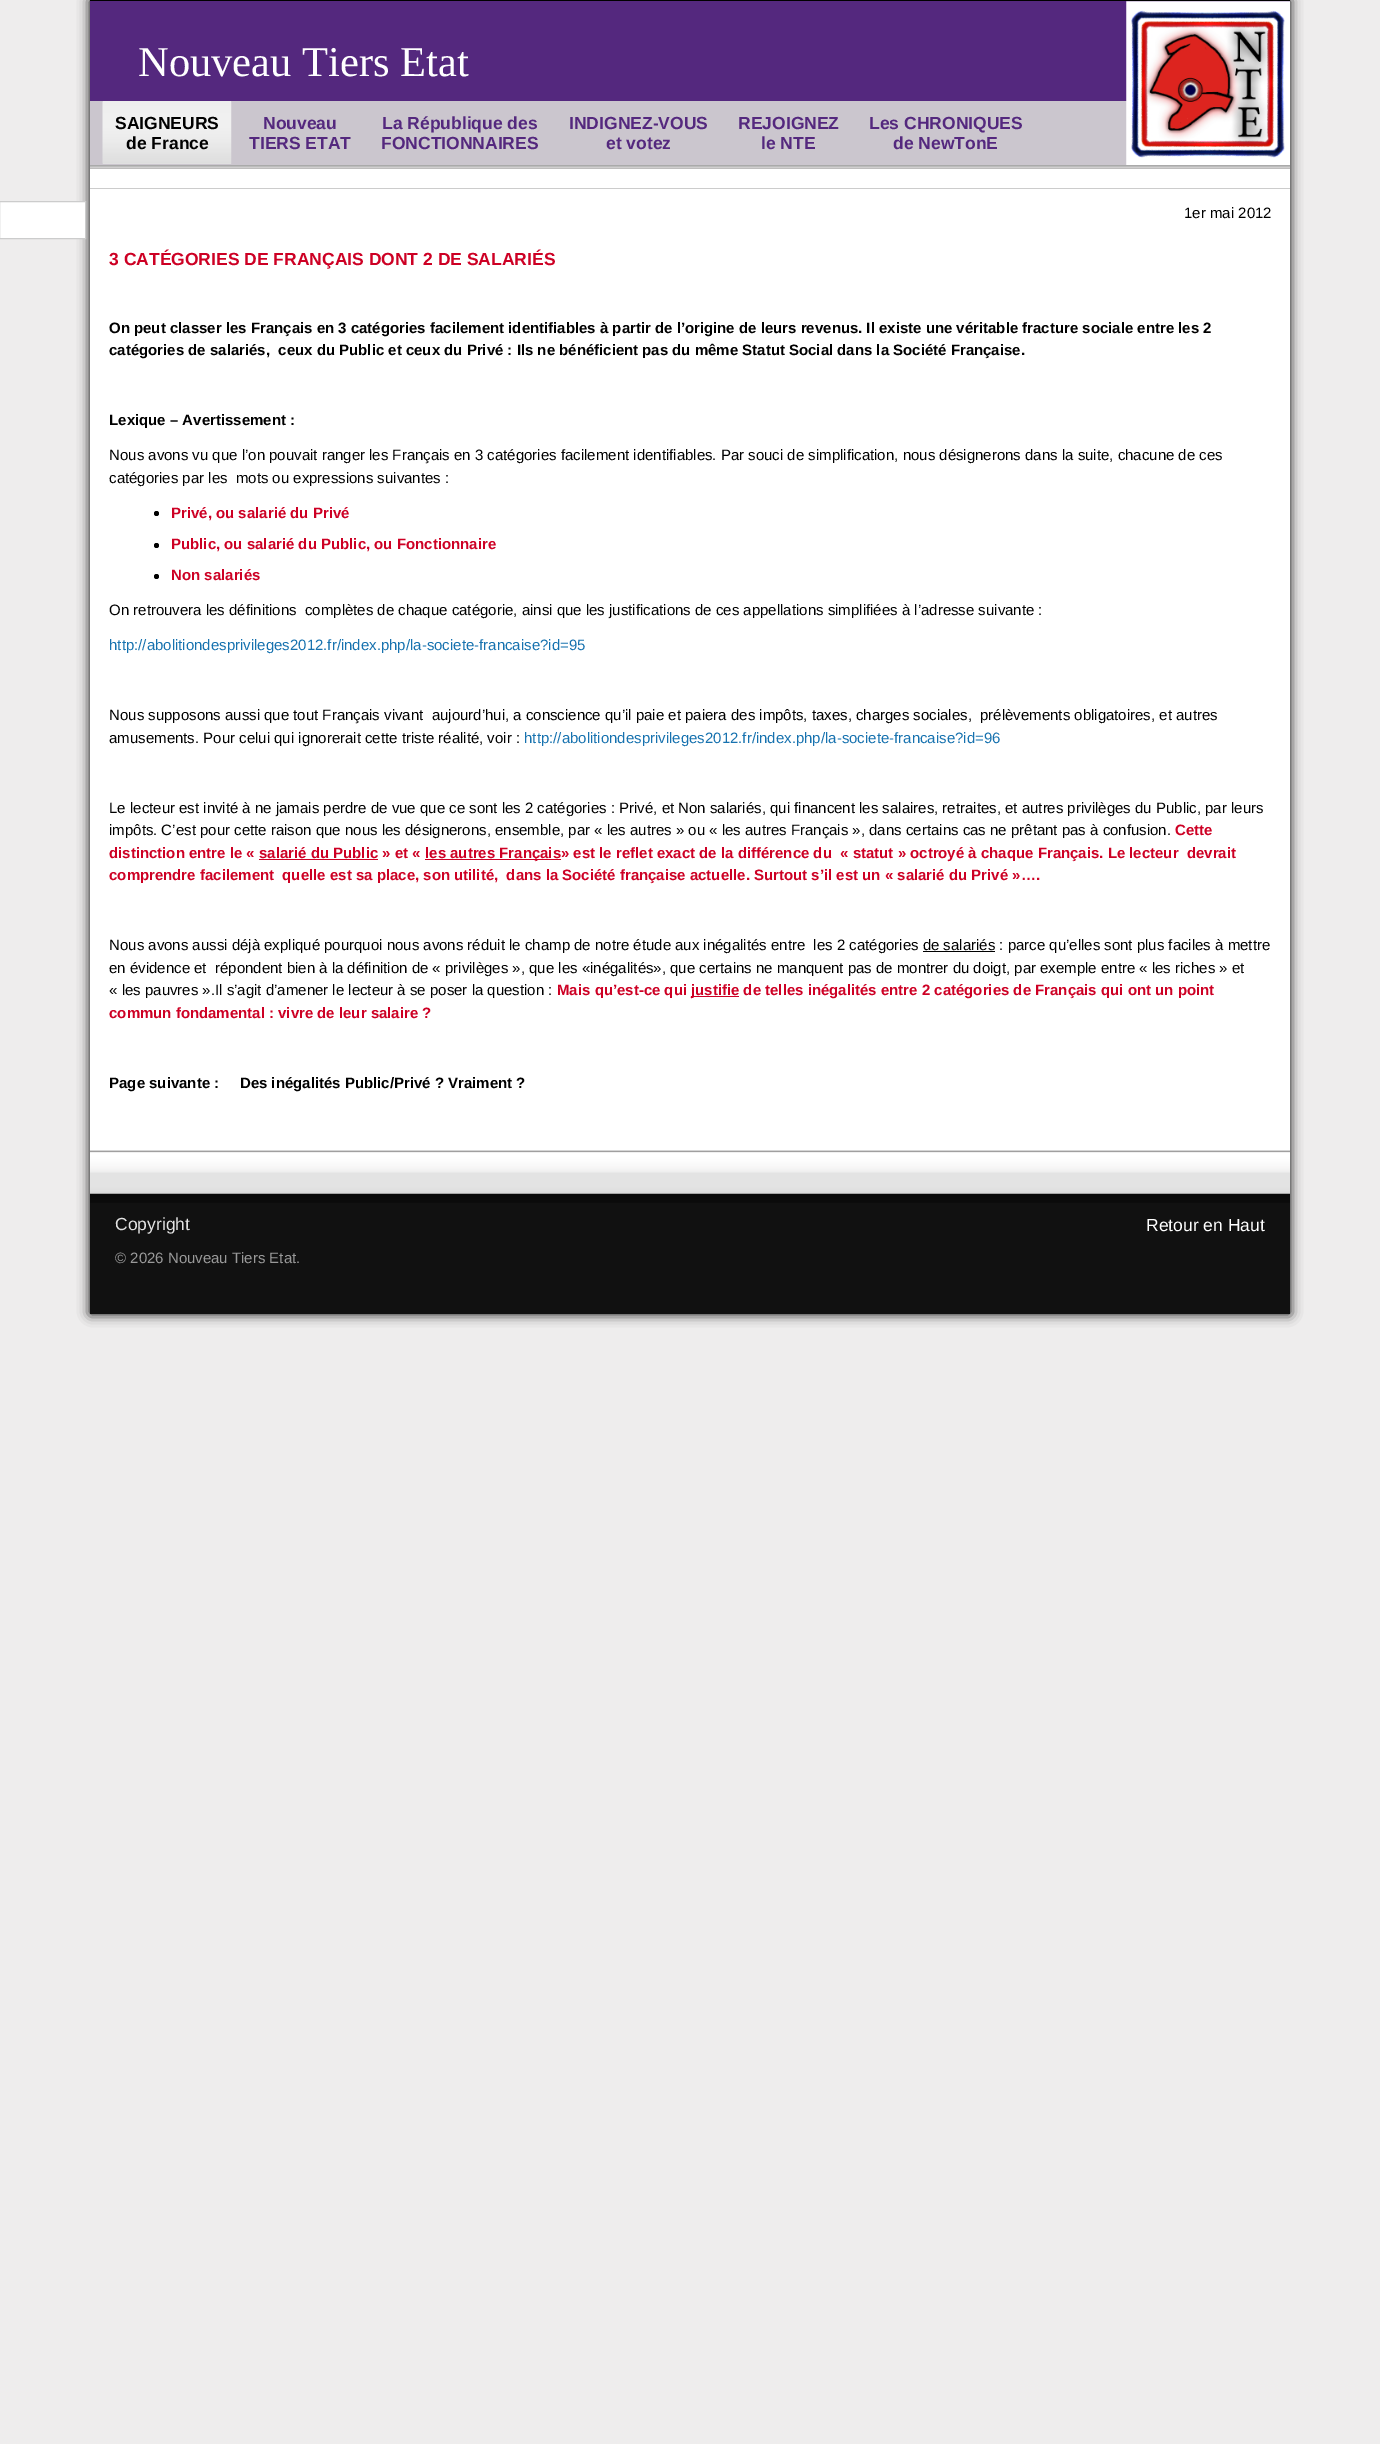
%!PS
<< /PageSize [1380 2444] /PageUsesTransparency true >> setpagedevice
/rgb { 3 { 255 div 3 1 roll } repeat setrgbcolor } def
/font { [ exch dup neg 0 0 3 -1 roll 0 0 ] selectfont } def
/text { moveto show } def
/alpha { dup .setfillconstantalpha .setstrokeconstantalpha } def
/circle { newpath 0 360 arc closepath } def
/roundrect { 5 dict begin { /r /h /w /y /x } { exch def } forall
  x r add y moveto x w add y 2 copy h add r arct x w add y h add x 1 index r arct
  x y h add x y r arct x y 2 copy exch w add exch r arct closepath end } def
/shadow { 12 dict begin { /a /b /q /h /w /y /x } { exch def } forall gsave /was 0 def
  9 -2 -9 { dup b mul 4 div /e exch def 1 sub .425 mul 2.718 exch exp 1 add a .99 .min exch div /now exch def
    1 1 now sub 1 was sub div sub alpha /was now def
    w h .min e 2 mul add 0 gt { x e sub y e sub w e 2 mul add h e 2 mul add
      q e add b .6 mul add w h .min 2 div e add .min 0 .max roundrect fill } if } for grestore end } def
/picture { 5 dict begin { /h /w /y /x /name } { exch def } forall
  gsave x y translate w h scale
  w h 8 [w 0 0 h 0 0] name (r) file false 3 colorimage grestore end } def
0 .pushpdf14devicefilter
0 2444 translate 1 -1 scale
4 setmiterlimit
238 237 237 rgb
0 0 1380 2444 rectfill
gsave
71 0 moveto 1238 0 rlineto 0 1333 rlineto -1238 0 rlineto closepath 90 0 moveto 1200 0 rlineto 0 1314 rlineto -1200 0 rlineto closepath eoclip newpath
0 0 0 rgb
90 0 1200 1314 0 6 1 shadow
grestore
84 40 126 rgb
90 1 1200 100 rectfill
0 0 0 rgb
90 0 1200 1 rectfill
203 198 206 rgb
90 101 1037 64 rectfill
(img_01.rgb) 1126 1 164 164 picture
238 238 238 rgb
103 101 128 63 rectfill
(img_02.rgb) 102 101 130 63 picture
(img_03.rgb) 90 165 1200 4 picture
255 255 255 rgb
90 169 1200 981 rectfill
204 204 204 rgb
90 188 1200 1 rectfill
255 255 255 rgb
-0.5 201.5 moveto 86 0 rlineto 0 37 rlineto -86 0 rlineto closepath gsave fill grestore
204 204 204 rgb
stroke
0 0 0 rgb
156.5 513.5 2.5 circle fill
156.5 545.5 2.5 circle fill
156.5 576.5 2.5 circle fill
205 0 36 rgb
259 859 119 1 rectfill
425 859 136 1 rectfill
0 0 0 rgb
923 951 72 1 rectfill
205 0 36 rgb
691 996 48 1 rectfill
17 17 17 rgb
90 1151 1200 163 rectfill
(img_04.rgb) 90 1151 1200 52 picture
213 213 213 rgb
90 1150 1200 1 rectfill
/LiberationSerif-Regular 42.5 font
255 255 255 rgb
(Nouveau Tiers Etat) 138 76 text
/LiberationSans-Bold 17.5 font
0 0 0 rgb
(SAIGNEURS) 115 129 text
(de France) 126 149 text
84 40 126 rgb
(Nouveau) 263 129 text
(TIERS ETAT) 249 149 text
(La République des) 382 129 text
(FONCTIONNAIRES) 381 149 text
(INDIGNEZ-VOUS) 569 129 text
(et votez) 606 149 text
(REJOIGNEZ) 738 129 text
(le NTE) 761 149 text
(Les CHRONIQUES) 869 129 text
(de NewTonE) 893 149 text
/LiberationSans-Regular 15 font
0 0 0 rgb
(1er mai 2012) 1184 218 text
/LiberationSans-Bold 17.5 font
205 0 36 rgb
(3 CATÉGORIES DE FRANÇAIS DONT 2 DE SALARIÉS) 109 265 text
/LiberationSans-Bold 15 font
0 0 0 rgb
(On peut classer les Français en 3 catégories facilement identifiables à partir de l’origine de leurs revenus. Il existe une véritable fracture sociale entre les 2) 109 333 text
(catégories de salariés,  ceux du Public et ceux du Privé : Ils ne bénéficient pas du même Statut Social dans la Société Française.) 109 355 text
(Lexique – Avertissement :) 109 425 text
/LiberationSans-Regular 15 font
(Nous avons vu que l’on pouvait ranger les Français en 3 catégories facilement identifiables. Par souci de simplification, nous désignerons dans la suite, chacune de ces) 109 460 text
(catégories par les  mots ou expressions suivantes :) 109 483 text
/LiberationSans-Bold 15 font
205 0 36 rgb
(Privé, ou salarié du Privé) 171 518 text
(Public, ou salarié du Public, ou Fonctionnaire) 171 549 text
(Non salariés) 171 580 text
/LiberationSans-Regular 15 font
0 0 0 rgb
(On retrouvera les définitions  complètes de chaque catégorie, ainsi que les justifications de ces appellations simplifiées à l’adresse suivante :) 109 615 text
23 114 175 rgb
(http://abolitiondesprivileges2012.fr/index.php/la-societe-francaise?id=95) 109 650 text
0 0 0 rgb
(Nous supposons aussi que tout Français vivant  aujourd’hui, a conscience qu’il paie et paiera des impôts, taxes, charges sociales,  prélèvements obligatoires, et autres) 109 720 text
(amusements. Pour celui qui ignorerait cette triste réalité, voir :) 109 743 text
23 114 175 rgb
(http://abolitiondesprivileges2012.fr/index.php/la-societe-francaise?id=96) 524 743 text
0 0 0 rgb
(Le lecteur est invité à ne jamais perdre de vue que ce sont les 2 catégories : Privé, et Non salariés, qui financent les salaires, retraites, et autres privilèges du Public, par leurs) 109 813 text
(impôts. C’est pour cette raison que nous les désignerons, ensemble, par « les autres » ou « les autres Français », dans certains cas ne prêtant pas à confusion.) 109 835 text
/LiberationSans-Bold 15 font
205 0 36 rgb
(Cette) 1175 835 text
(distinction entre le « salarié du Public » et «) 109 858 text
(les autres Français» est le reflet exact de la différence du  « statut » octroyé à chaque Français. Le lecteur  devrait) 425 858 text
(comprendre facilement  quelle est sa place, son utilité,  dans la Société française actuelle. Surtout s’il est un « salarié du Privé »….) 109 880 text
/LiberationSans-Regular 15 font
0 0 0 rgb
(Nous avons aussi déjà expliqué pourquoi nous avons réduit le champ de notre étude aux inégalités entre  les 2 catégories de salariés : parce qu’elles sont plus faciles à mettre) 109 950 text
(en évidence et  répondent bien à la définition de « privilèges », que les «inégalités», que certains ne manquent pas de montrer du doigt, par exemple entre « les riches » et) 109 973 text
(« les pauvres ».Il s’agit d’amener le lecteur à se poser la question :) 109 995 text
/LiberationSans-Bold 15 font
205 0 36 rgb
(Mais qu’est-ce qui) 557 995 text
(justifie de telles inégalités entre 2 catégories de Français qui ont un point) 691 995 text
(commun fondamental : vivre de leur salaire ?) 109 1018 text
0 0 0 rgb
(Page suivante :     Des inégalités Public/Privé ? Vraiment ?) 109 1088 text
/LiberationSans-Regular 17.5 font
227 227 227 rgb
(Copyright) 115 1230 text
/LiberationSans-Regular 15 font
153 153 153 rgb
(© 2026 Nouveau Tiers Etat.) 115 1263 text
/LiberationSans-Regular 17.5 font
255 255 255 rgb
(Retour en Haut) 1146 1231 text
.poppdf14devicefilter showpage
